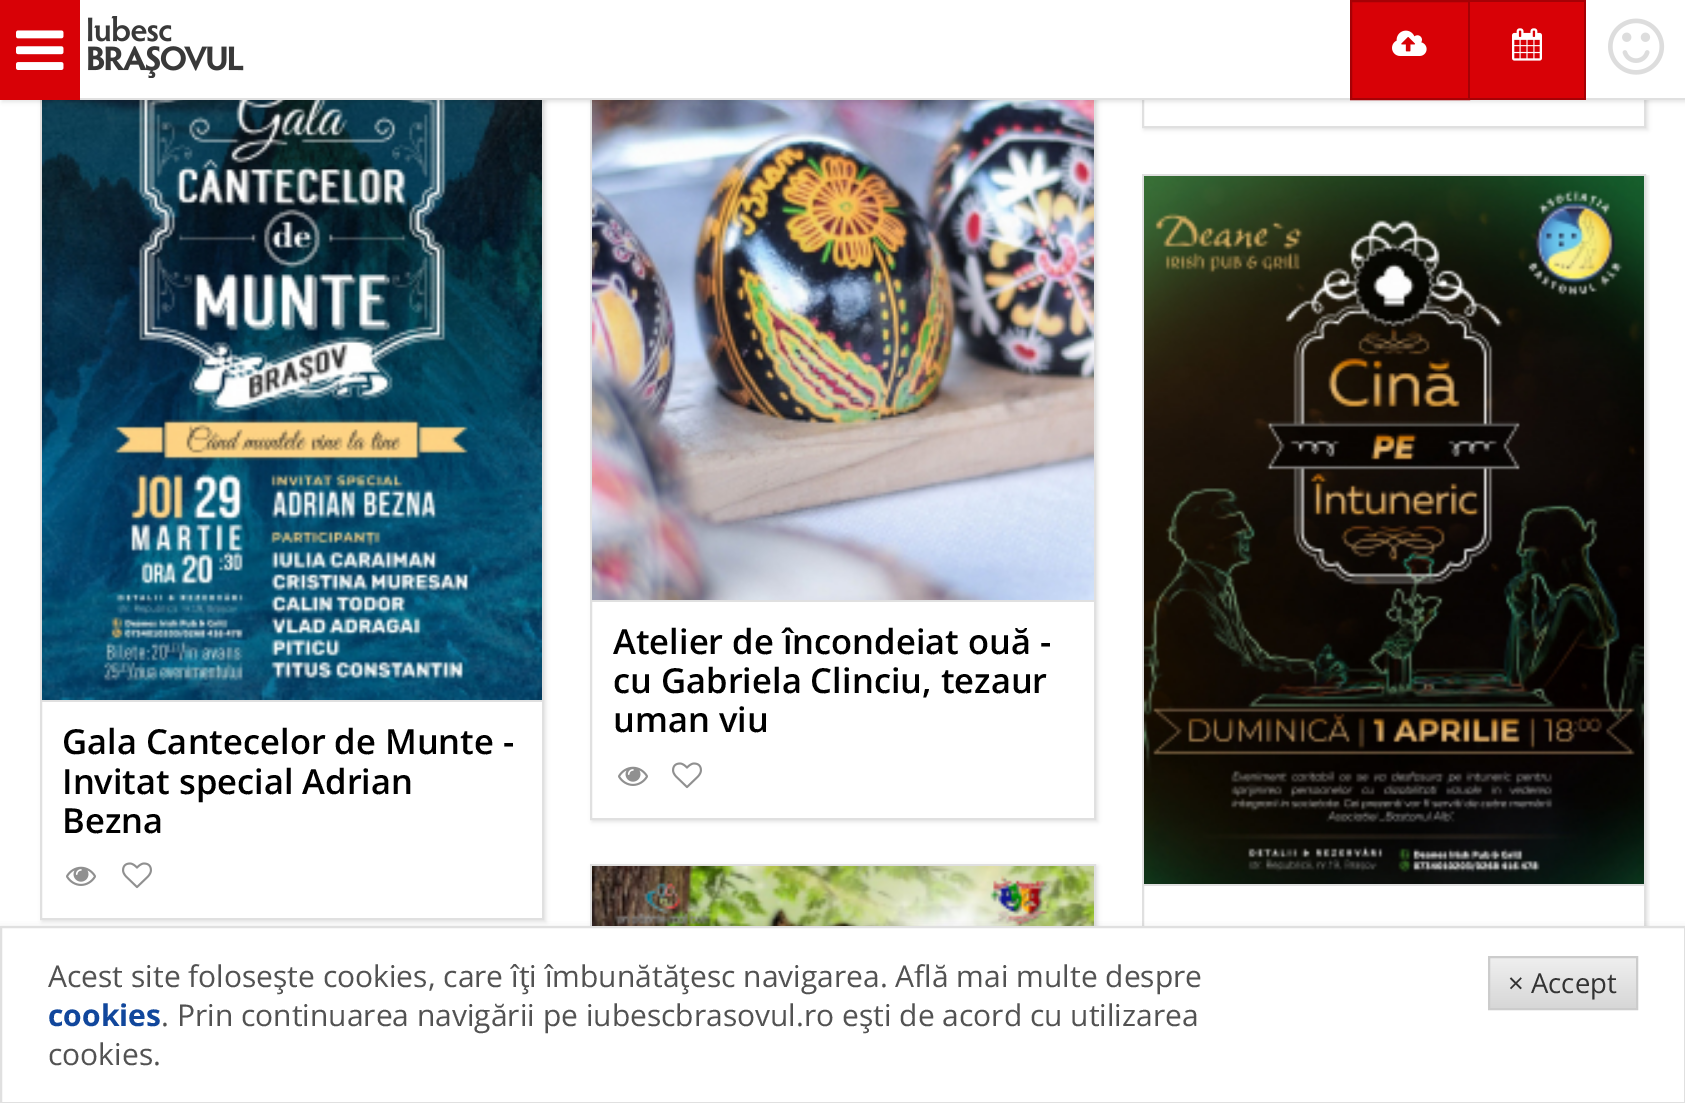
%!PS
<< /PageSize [1685 1103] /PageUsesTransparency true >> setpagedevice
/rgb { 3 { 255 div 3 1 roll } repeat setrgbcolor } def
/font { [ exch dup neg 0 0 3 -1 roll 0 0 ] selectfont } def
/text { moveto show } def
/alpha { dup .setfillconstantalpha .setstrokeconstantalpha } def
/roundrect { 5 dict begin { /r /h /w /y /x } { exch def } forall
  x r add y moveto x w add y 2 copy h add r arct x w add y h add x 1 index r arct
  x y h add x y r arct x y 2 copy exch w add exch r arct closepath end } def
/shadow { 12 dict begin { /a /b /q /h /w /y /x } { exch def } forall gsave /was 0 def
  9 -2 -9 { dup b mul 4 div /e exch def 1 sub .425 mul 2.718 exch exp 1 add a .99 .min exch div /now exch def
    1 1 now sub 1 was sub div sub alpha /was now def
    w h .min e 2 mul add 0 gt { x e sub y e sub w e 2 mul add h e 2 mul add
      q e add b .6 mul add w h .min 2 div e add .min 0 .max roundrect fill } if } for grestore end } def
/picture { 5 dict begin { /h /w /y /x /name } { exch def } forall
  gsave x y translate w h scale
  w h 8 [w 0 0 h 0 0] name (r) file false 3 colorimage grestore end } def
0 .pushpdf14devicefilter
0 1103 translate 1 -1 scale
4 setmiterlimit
255 255 255 rgb
0 0 1685 1103 rectfill
gsave
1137 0 moveto 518 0 rlineto 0 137 rlineto -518 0 rlineto closepath 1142 -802 moveto 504 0 rlineto 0 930 rlineto -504 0 rlineto closepath eoclip newpath
0 0 0 rgb
1144 -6 504 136 0 2 0.1 shadow
grestore
224 224 224 rgb
2 setlinewidth
1143 -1 502 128 rectstroke
gsave
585 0 moveto 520 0 rlineto 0 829 rlineto -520 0 rlineto closepath 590 -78 moveto 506 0 rlineto 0 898 rlineto -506 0 rlineto closepath eoclip newpath
0 0 0 rgb
592 -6 506 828 0 2 0.1 shadow
grestore
591 -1 504 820 rectstroke
(img_06.rgb) 592 100 502 500 picture
gsave
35 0 moveto 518 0 rlineto 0 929 rlineto -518 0 rlineto closepath 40 -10 moveto 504 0 rlineto 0 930 rlineto -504 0 rlineto closepath eoclip newpath
0 0 0 rgb
42 -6 504 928 0 2 0.1 shadow
grestore
41 -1 502 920 rectstroke
(img_10.rgb) 42 100 500 600 picture
0 0 0 rgb
2 2 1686 100 0 2 0.1 shadow
255 255 255 rgb
80 0 1605 98 rectfill
224 224 224 rgb
80 98 1605 2 rectfill
216 1 6 rgb
0 0 80 100 rectfill
(img_01.rgb) 16 30 48 40 picture
(img_02.rgb) 88 16 156 62 picture
1351 1 moveto 118 0 rlineto 0 98 rlineto -118 0 rlineto closepath gsave fill grestore
165 1 5 rgb
stroke
(img_03.rgb) 1392 30 35 26 picture
216 1 6 rgb
1470 2 114 96 rectfill
165 1 5 rgb
1470 0 116 2 rectfill
1584 0 2 100 rectfill
1470 98 116 2 rectfill
(img_04.rgb) 1512 28 30 33 picture
(img_05.rgb) 1608 18 57 57 picture
224 224 224 rgb
592 600 502 2 rectfill
(img_07.rgb) 618 766 30 20 picture
(img_08.rgb) 672 762 30 27 picture
gsave
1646 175 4 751 rectclip
0 0 0 rgb
1144 176 504 890 0 2 0.1 shadow
grestore
1143 175 502 888 rectstroke
1144 884 500 2 rectfill
(img_09.rgb) 1144 176 500 708 picture
42 700 500 2 rectfill
(img_07.rgb) 66 866 30 20 picture
(img_08.rgb) 122 862 30 27 picture
0 0 0 rgb
592 866 506 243 0 2 0.1 shadow
224 224 224 rgb
591 865 504 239 rectstroke
(img_11.rgb) 592 866 502 60 picture
0 0 0 rgb
0 930 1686 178 0 4 0.2 shadow
255 255 255 rgb
1 927 moveto 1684 0 rlineto 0 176 rlineto -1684 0 rlineto closepath gsave fill grestore
224 224 224 rgb
stroke
gsave 1490 958 moveto 146 0 rlineto 0 50 rlineto -146 0 rlineto closepath clip newpath
<< /ShadingType 2 /ColorSpace /DeviceRGB /Coords [1563 958 1563 1008] /Extend [true true] /Function << /FunctionType 2 /Domain [0 1] /C0 [0.937 0.937 0.937] /C1 [0.843 0.843 0.843] /N 1 >> >> shfill grestore
204 204 204 rgb
1489 957 148 52 rectstroke
/OpenSans-SemiBold 34.5 font
0 0 0 rgb
(Atelier de încondeiat ouă -) 613 654 text
(cu Gabriela Clinciu, tezaur) 613 693 text
(uman viu) 613 732 text
(Gala Cantecelor de Munte -) 62 754 text
(Invitat special Adrian) 62 794 text
(Bezna) 62 833 text
/OpenSans-Regular 30 font
82 82 82 rgb
(Acest site foloseşte cookies, care îţi îmbunătăţesc navigarea. Află mai multe despre) 48 987 text
/OpenSans-Bold 30 font
17 71 156 rgb
(cookies) 48 1026 text
/OpenSans-Regular 30 font
82 82 82 rgb
(. Prin continuarea navigării pe iubescbrasovul.ro eşti de acord cu utilizarea) 161 1026 text
(cookies.) 48 1065 text
/OpenSans-Regular 27.5 font
51 51 51 rgb
(× Accept) 1508 993 text
.poppdf14devicefilter showpage
